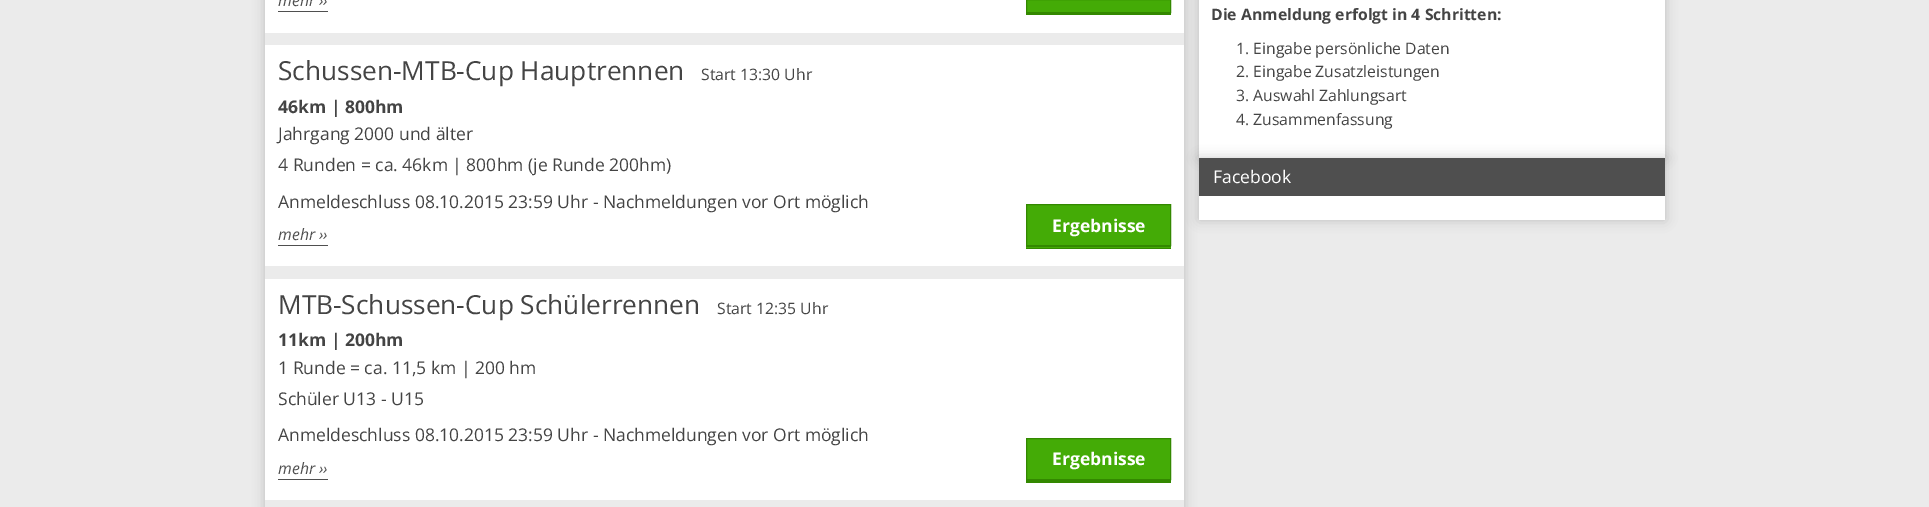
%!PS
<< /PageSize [1929 507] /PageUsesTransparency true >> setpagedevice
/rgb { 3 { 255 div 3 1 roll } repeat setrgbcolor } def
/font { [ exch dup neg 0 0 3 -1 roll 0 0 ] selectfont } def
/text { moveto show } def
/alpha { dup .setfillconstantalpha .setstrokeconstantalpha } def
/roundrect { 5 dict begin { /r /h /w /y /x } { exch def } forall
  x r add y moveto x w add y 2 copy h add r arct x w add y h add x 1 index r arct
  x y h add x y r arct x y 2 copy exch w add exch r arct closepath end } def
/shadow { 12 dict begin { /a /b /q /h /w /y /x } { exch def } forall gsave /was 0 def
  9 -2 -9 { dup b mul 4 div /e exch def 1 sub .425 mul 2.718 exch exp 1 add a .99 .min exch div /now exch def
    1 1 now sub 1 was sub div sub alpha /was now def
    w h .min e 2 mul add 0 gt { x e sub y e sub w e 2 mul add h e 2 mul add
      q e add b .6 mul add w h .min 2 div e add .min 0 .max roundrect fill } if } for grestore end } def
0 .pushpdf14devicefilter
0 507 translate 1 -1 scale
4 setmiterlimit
235 235 235 rgb
0 0 1929 507 rectfill
10 10 10 rgb
265 -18 919 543 0 6 0.2 shadow
255 255 255 rgb
265 0 919 500 rectfill
235 235 235 rgb
265 33 919 12 rectfill
79 79 79 rgb
278 11 50 1 rectfill
51 136 0 rgb
1026 -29 moveto 0 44 rlineto 145 0 rlineto 0 -1 rlineto -145 0 rlineto closepath fill
68 171 6 rgb
1026.5 -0.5 moveto 144 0 rlineto 0 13 rlineto -144 0 rlineto closepath gsave fill grestore
51 136 0 rgb
stroke
1026 13 145 1 rectfill
235 235 235 rgb
265 266 919 13 rectfill
79 79 79 rgb
278 245 50 1 rectfill
51 136 0 rgb
1026 205 moveto 0 44 rlineto 145 0 rlineto 0 -1 rlineto -145 0 rlineto closepath fill
68 171 6 rgb
1026 205 145 43 rectfill
51 136 0 rgb
1026.5 204.5 144 41 rectstroke
1026 246 145 1 rectfill
235 235 235 rgb
265 500 919 7 rectfill
79 79 79 rgb
278 479 50 1 rectfill
51 136 0 rgb
1026 439 moveto 0 44 rlineto 145 0 rlineto 0 -2 rlineto -145 0 rlineto closepath fill
68 171 6 rgb
1026.5 438.5 moveto 144 0 rlineto 0 41 rlineto -144 0 rlineto closepath gsave fill grestore
51 136 0 rgb
stroke
1026 480 145 1 rectfill
10 10 10 rgb
1199 -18 466 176 0 6 0.2 shadow
255 255 255 rgb
1199 0 466 158 rectfill
10 10 10 rgb
1199 158 466 62 0 6 0.2 shadow
255 255 255 rgb
1199 196 466 24 rectfill
79 79 79 rgb
1199 158 466 38 rectfill
/OpenSans-Italic 15.75 font
(mehr ››) 278 6 text
/OpenSans-Regular 26.25 font
68 68 68 rgb
(Schussen-MTB-Cup Hauptrennen) 278 80 text
/OpenSans-Regular 15.75 font
(Start 13:30 Uhr) 701 80 text
/OpenSans-Bold 17.5 font
(46km | 800hm) 278 113 text
/OpenSans-Regular 17.5 font
(Jahrgang 2000 und älter) 278 140 text
(4 Runden = ca. 46km | 800hm \(je Runde 200hm\)) 278 171 text
(Anmeldeschluss 08.10.2015 23:59 Uhr - Nachmeldungen vor Ort möglich) 278 208 text
/OpenSans-Italic 15.75 font
79 79 79 rgb
(mehr ››) 278 240 text
/OpenSans-Bold 17.5 font
255 255 255 rgb
(Ergebnisse) 1052 232 text
/OpenSans-Regular 26.25 font
68 68 68 rgb
(MTB-Schussen-Cup Schülerrennen) 278 314 text
/OpenSans-Regular 15.75 font
(Start 12:35 Uhr) 717 314 text
/OpenSans-Bold 17.5 font
(11km | 200hm) 278 346 text
/OpenSans-Regular 17.5 font
(1 Runde = ca. 11,5 km | 200 hm) 278 374 text
(Schüler U13 - U15) 278 405 text
(Anmeldeschluss 08.10.2015 23:59 Uhr - Nachmeldungen vor Ort möglich) 278 441 text
/OpenSans-Italic 15.75 font
79 79 79 rgb
(mehr ››) 278 474 text
/OpenSans-Bold 17.5 font
255 255 255 rgb
(Ergebnisse) 1052 465 text
/OpenSans-Bold 15.75 font
68 68 68 rgb
(Die Anmeldung erfolgt in 4 Schritten:) 1211 20 text
/OpenSans-Regular 15.75 font
(1. Eingabe persönliche Daten) 1236 54 text
(2. Eingabe Zusatzleistungen) 1236 77 text
(3. Auswahl Zahlungsart) 1236 101 text
(4. Zusammenfassung) 1236 125 text
/OpenSans-Regular 17.5 font
255 255 255 rgb
(Facebook) 1213 183 text
.poppdf14devicefilter showpage
